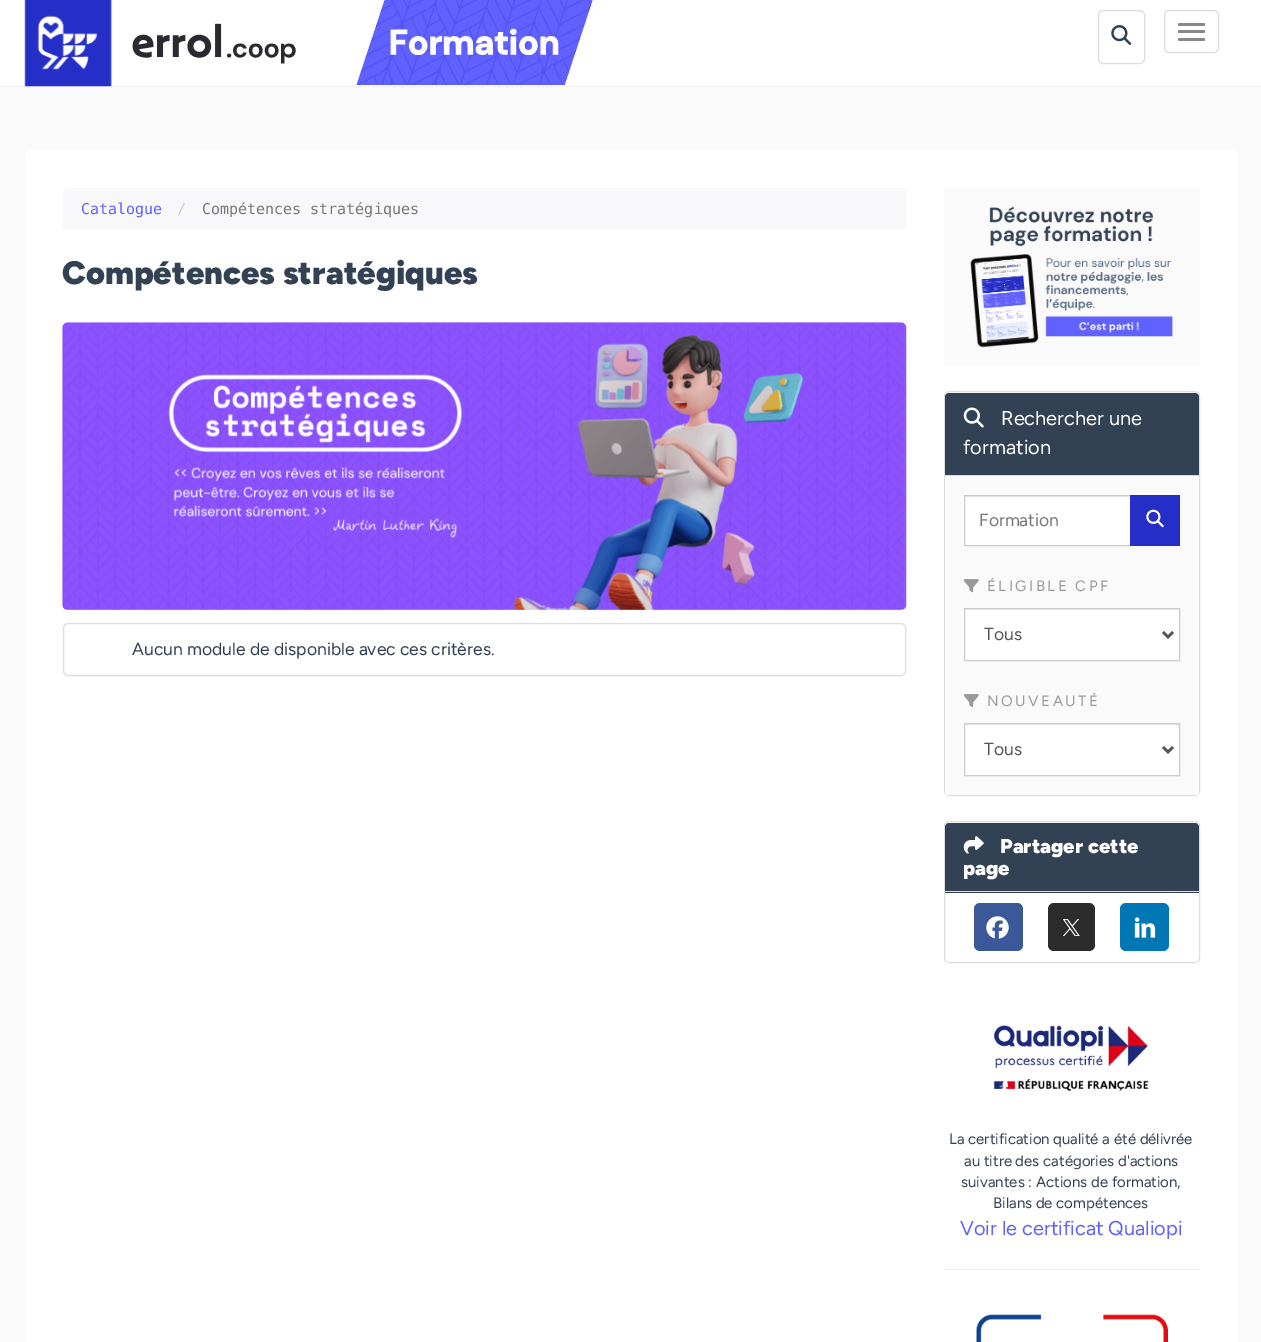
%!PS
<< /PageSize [1261 1342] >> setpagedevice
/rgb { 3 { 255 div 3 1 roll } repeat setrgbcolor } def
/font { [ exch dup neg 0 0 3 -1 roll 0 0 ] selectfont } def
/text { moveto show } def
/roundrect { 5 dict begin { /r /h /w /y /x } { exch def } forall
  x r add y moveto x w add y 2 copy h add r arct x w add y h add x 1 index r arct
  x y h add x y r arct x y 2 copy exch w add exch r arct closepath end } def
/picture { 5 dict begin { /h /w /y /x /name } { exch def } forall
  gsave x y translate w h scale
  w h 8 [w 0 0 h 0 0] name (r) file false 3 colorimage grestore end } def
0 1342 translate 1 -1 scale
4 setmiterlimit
250 250 250 rgb
0 0 1261 1342 rectfill
255 255 255 rgb
0 0 1261 86 rectfill
242 242 243 rgb
0 86 1261 1 rectfill
(img_01.rgb) 24 0 88 87 picture
(img_02.rgb) 132 0 461 85 picture
221 221 221 rgb
1098.5 10.5 46 53 4.5 roundrect stroke
(img_03.rgb) 1111 25 21 20 picture
1164.5 10.5 54 42 4.5 roundrect stroke
136 136 136 rgb
1178 23 27 3 1.5 roundrect fill
1178 30 27 3 1.5 roundrect fill
1178 38 27 3 1.5 roundrect fill
255 255 255 rgb
25 150 1213 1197 5 roundrect fill
248 248 251 rgb
63 188 843 42 5 roundrect fill
(img_04.rgb) 62 322 845 288 picture
gsave
63 323 843 287 5 roundrect clip newpath
255 255 255 rgb
68 323 moveto 837 0 rlineto 0 287 rlineto -837 0 rlineto -3 0 -5 -2 -5 -5 rcurveto 0 -277 rlineto 0 -3 2 -5 5 -5 rcurveto closepath fill
grestore
(img_05.rgb) 62 322 843 288 picture
221 221 221 rgb
63.5 623.5 842 52 4.5 roundrect stroke
250 250 250 rgb
944 188 256 178 rectfill
(img_06.rgb) 970 206 203 142 picture
221 221 221 rgb
944.5 391.5 255 404 4.5 roundrect stroke
51 65 85 rgb
949 393 moveto 246 0 rlineto 2 0 4 2 4 4 rcurveto 0 79 rlineto -254 0 rlineto 0 -79 rlineto 0 -2 2 -4 4 -4 rcurveto closepath fill
221 221 221 rgb
945 475 254 1 rectfill
(img_07.rgb) 963 407 21 21 picture
250 250 250 rgb
945 476 254 319 rectfill
255 255 255 rgb
965 497 165 48 rectfill
236 236 236 rgb
965 496 165 1 rectfill
204 204 204 rgb
964.5 495.5 166 50 rectstroke
37 46 198 rgb
1130 495 50 51 rectfill
(img_08.rgb) 1146 509 18 19 picture
(img_09.rgb) 963 579 16 14 picture
255 255 255 rgb
965 610 214 50 rectfill
236 236 236 rgb
965 609 214 1 rectfill
204 204 204 rgb
964.5 608.5 215 52 rectstroke
85 85 85 rgb
2.5 setlinewidth
1163 632 moveto 5 5 rlineto 5 -5 rlineto stroke
(img_09.rgb) 963 694 16 14 picture
255 255 255 rgb
965 725 214 50 rectfill
236 236 236 rgb
965 724 214 1 rectfill
204 204 204 rgb
1 setlinewidth
964.5 723.5 215 52 rectstroke
85 85 85 rgb
2.5 setlinewidth
1163 747 moveto 5 5 rlineto 5 -5 rlineto stroke
221 221 221 rgb
1 setlinewidth
944.5 821.5 255 141 4.5 roundrect stroke
51 65 85 rgb
949 823 moveto 246 0 rlineto 2 0 4 2 4 4 rcurveto 0 66 rlineto -254 0 rlineto 0 -66 rlineto 0 -2 2 -4 4 -4 rcurveto closepath fill
221 221 221 rgb
945 891 254 1 rectfill
(img_10.rgb) 963 836 21 18 picture
59 89 152 rgb
974 903 49 48 6 roundrect fill
(img_11.rgb) 986 916 23 23 picture
44 44 45 rgb
1048 903 47 48 6 roundrect fill
(img_12.rgb) 1063 919 17 17 picture
0 119 181 rgb
1120 903 49 48 6 roundrect fill
(img_13.rgb) 1134 917 22 21 picture
(img_14.rgb) 994 1025 155 66 picture
238 238 238 rgb
944 1269 256 1 rectfill
(img_15.rgb) 976 1314 192 28 picture
/DejaVuSansMono-Regular 15 font
97 97 255 rgb
(Catalogue) 81 214 text
204 204 204 rgb
(/) 177 214 text
119 119 119 rgb
(Compétences stratégiques) 202 214 text
/Figtree-Black 32.5 font
51 65 85 rgb
(Compétences stratégiques) 62 284 text
/Figtree-Regular 17.5 font
(Aucun module de disponible avec ces critères.) 132 655 text
/Figtree-Regular 20 font
255 255 255 rgb
(Rechercher une) 1001 425 text
(formation) 963 454 text
/Figtree-Regular 17.5 font
119 119 119 rgb
(Formation) 979 526 text
/Figtree-Regular 15 font
153 153 153 rgb
987 591 moveto 2.5 0 (ÉLIGIBLE CPF) ashow
/Figtree-Regular 17.5 font
85 85 85 rgb
(Tous) 984 640 text
/Figtree-Regular 15 font
153 153 153 rgb
987 706 moveto 2.5 0 (NOUVEAUTÉ) ashow
/Figtree-Regular 17.5 font
85 85 85 rgb
(Tous) 984 755 text
/Figtree-Black 20 font
255 255 255 rgb
(Partager cette) 1000 853 text
(page) 963 875 text
/Figtree-Regular 15 font
51 65 85 rgb
(La certification qualité a été délivrée) 949 1144 text
(au titre des catégories d'actions) 964 1166 text
(suivantes : Actions de formation,) 961 1187 text
(Bilans de compétences) 993 1208 text
/Figtree-Regular 20 font
97 97 255 rgb
(Voir le certificat Qualiopi) 960 1235 text
showpage
